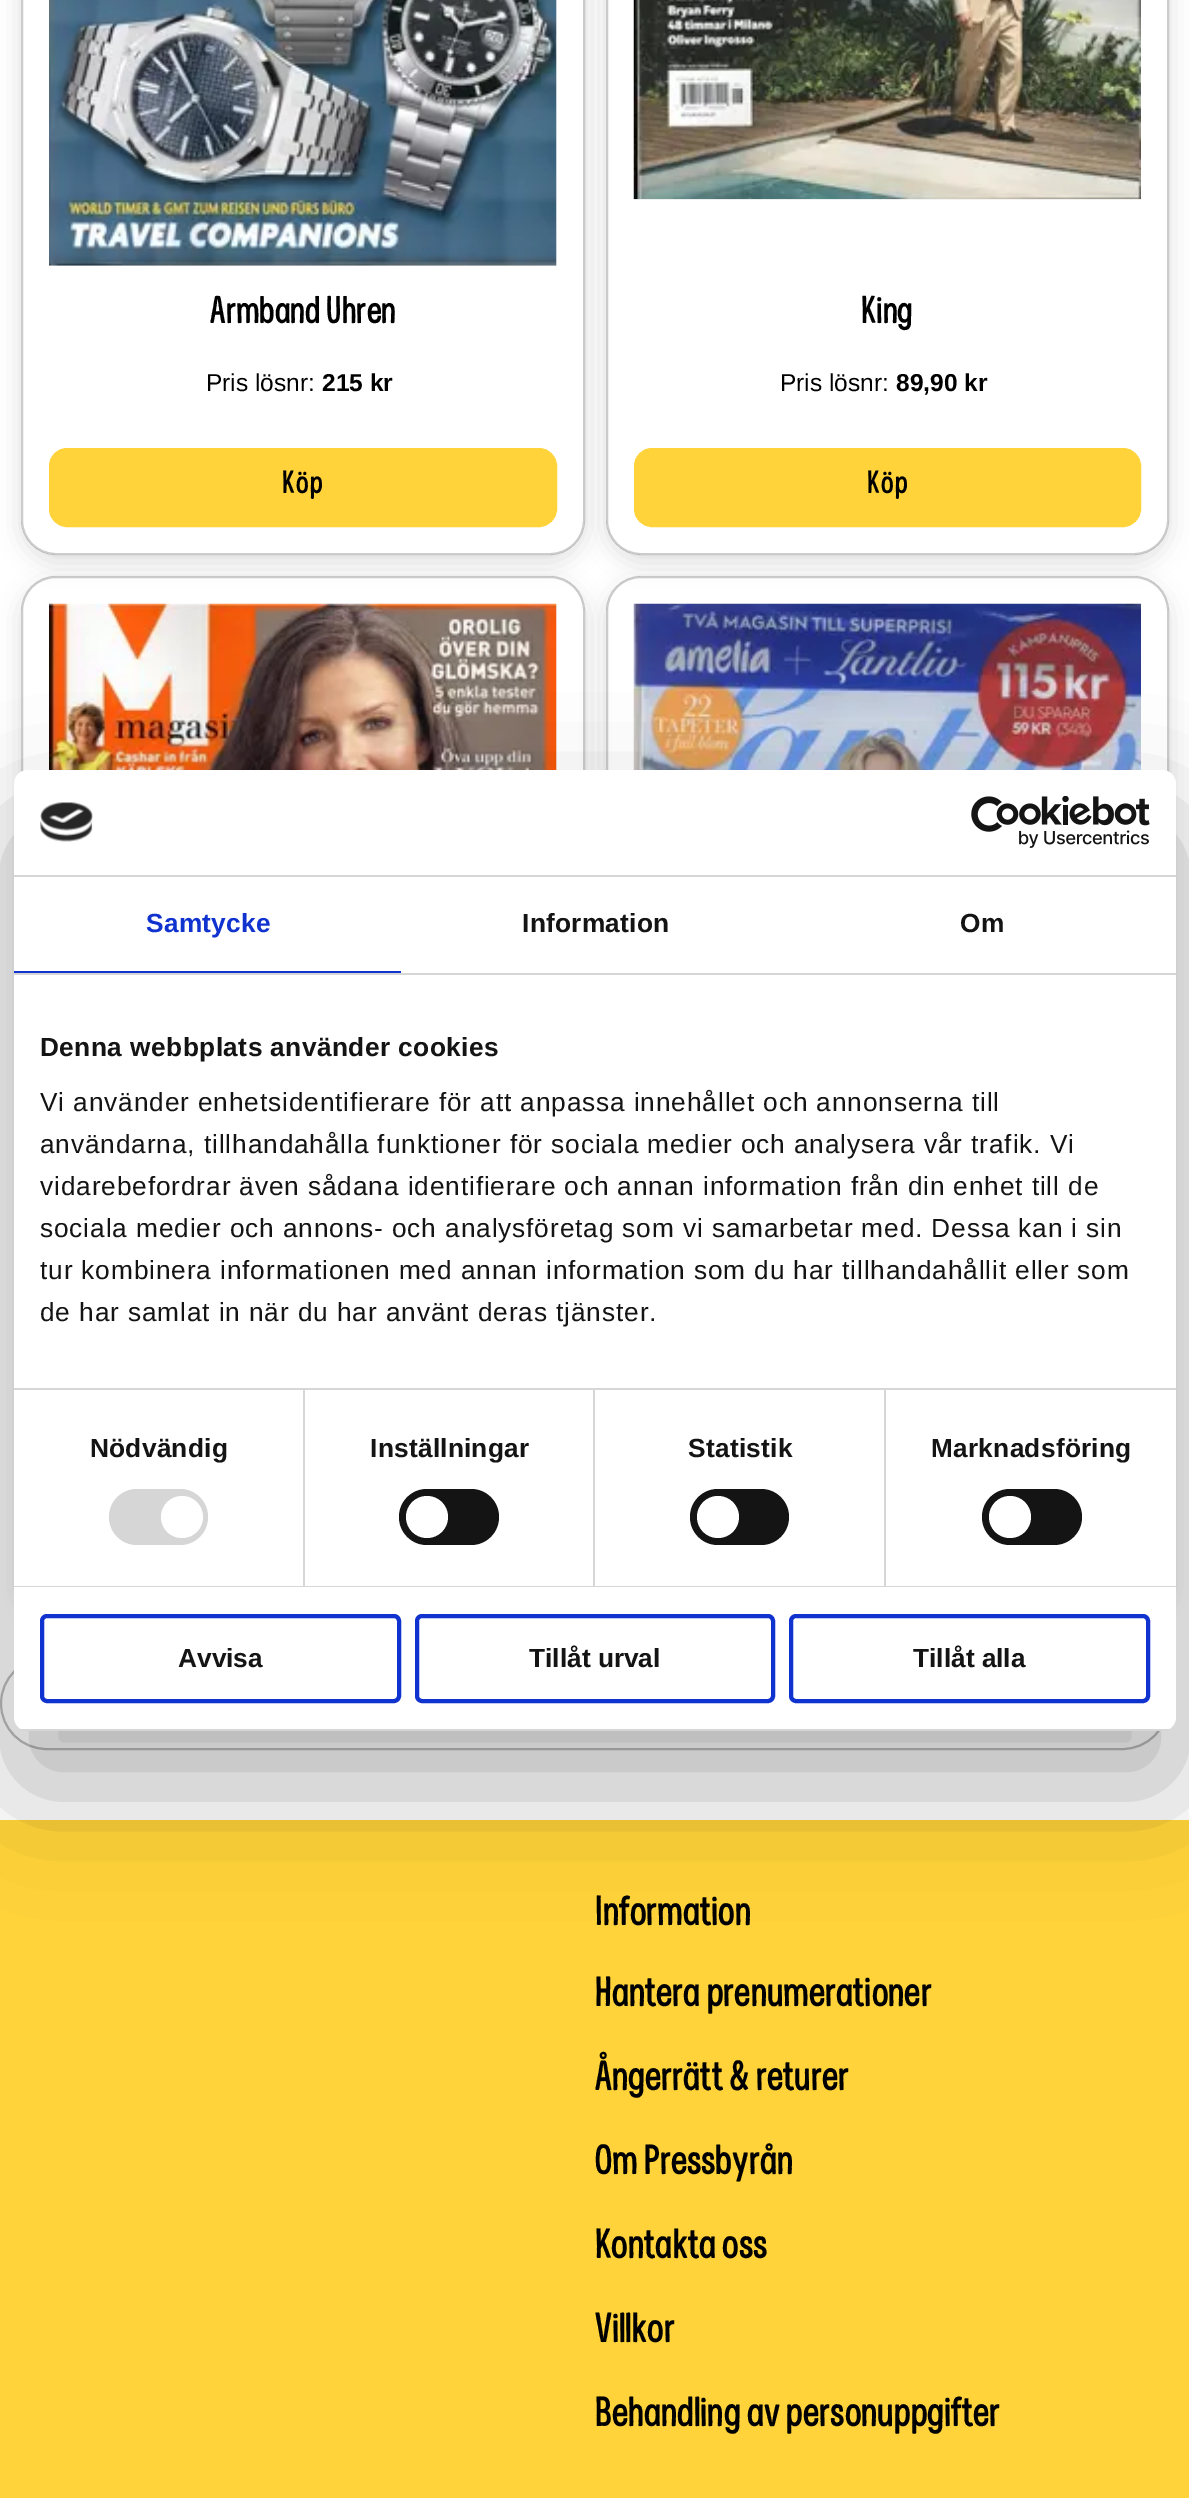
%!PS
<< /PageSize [1189 2498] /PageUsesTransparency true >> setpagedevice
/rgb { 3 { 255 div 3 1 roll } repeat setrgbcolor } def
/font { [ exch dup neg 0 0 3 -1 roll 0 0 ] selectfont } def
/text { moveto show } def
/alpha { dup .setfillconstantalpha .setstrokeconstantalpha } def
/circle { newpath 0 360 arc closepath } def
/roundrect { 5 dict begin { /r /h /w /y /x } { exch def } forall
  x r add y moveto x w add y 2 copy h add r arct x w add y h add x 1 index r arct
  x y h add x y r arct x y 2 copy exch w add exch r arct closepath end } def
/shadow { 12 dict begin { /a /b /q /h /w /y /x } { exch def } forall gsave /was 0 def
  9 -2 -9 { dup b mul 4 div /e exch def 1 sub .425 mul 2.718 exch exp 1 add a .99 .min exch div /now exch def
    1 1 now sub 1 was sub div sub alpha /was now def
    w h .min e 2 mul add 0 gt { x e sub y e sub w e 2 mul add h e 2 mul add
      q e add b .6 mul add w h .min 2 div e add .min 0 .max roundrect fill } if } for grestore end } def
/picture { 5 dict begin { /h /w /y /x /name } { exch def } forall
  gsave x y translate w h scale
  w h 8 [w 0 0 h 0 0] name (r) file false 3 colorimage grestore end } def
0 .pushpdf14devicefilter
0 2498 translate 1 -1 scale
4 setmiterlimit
255 255 255 rgb
0 0 1189 2498 rectfill
gsave
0 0 moveto 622 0 rlineto 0 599 rlineto -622 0 rlineto closepath 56 -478 moveto 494 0 rlineto 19.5 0 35 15.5 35 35 rcurveto 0 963 rlineto 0 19.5 -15.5 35 -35 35 rcurveto -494 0 rlineto -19.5 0 -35 -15.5 -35 -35 rcurveto 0 -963 rlineto 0 -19.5 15.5 -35 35 -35 rcurveto closepath eoclip newpath
0 0 0 rgb
21 -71 564 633 35 12 0.12 shadow
grestore
0.2 alpha
0 0 0 rgb
2 setlinewidth
22 -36 562 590 34 roundrect stroke
1 alpha
245 245 245 rgb
49 0 508 266 rectfill
(img_01.rgb) 49 0 508 266 picture
255 211 57 rgb
50 449 506 77 17 roundrect gsave fill grestore
stroke
gsave
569 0 moveto 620 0 rlineto 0 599 rlineto -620 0 rlineto closepath 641 -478 moveto 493 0 rlineto 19.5 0 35 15.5 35 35 rcurveto 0 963 rlineto 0 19.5 -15.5 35 -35 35 rcurveto -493 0 rlineto -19.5 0 -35 -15.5 -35 -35 rcurveto 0 -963 rlineto 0 -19.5 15.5 -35 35 -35 rcurveto closepath eoclip newpath
0 0 0 rgb
606 -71 563 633 35 12 0.12 shadow
grestore
0.2 alpha
0 0 0 rgb
607 -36 561 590 34 roundrect stroke
1 alpha
245 245 245 rgb
634 199 507 1 rectfill
(img_02.rgb) 633 0 508 200 picture
255 211 57 rgb
635 449 505 77 17 roundrect gsave fill grestore
stroke
gsave
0 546 moveto 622 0 rlineto 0 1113 rlineto -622 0 rlineto closepath 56 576 moveto 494 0 rlineto 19.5 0 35 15.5 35 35 rcurveto 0 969 rlineto 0 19.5 -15.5 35 -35 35 rcurveto -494 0 rlineto -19.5 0 -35 -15.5 -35 -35 rcurveto 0 -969 rlineto 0 -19.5 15.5 -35 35 -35 rcurveto closepath eoclip newpath
0 0 0 rgb
21 583 564 1039 35 12 0.12 shadow
grestore
0.2 alpha
0 0 0 rgb
22 577 562 1037 34 roundrect stroke
1 alpha
245 245 245 rgb
556 604 1 166 rectfill
(img_03.rgb) 49 603 508 167 picture
gsave
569 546 moveto 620 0 rlineto 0 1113 rlineto -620 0 rlineto closepath 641 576 moveto 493 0 rlineto 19.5 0 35 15.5 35 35 rcurveto 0 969 rlineto 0 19.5 -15.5 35 -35 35 rcurveto -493 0 rlineto -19.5 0 -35 -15.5 -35 -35 rcurveto 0 -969 rlineto 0 -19.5 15.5 -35 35 -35 rcurveto closepath eoclip newpath
0 0 0 rgb
606 583 563 1039 35 12 0.12 shadow
grestore
0.2 alpha
0 0 0 rgb
607 577 561 1037 34 roundrect stroke
1 alpha
(img_04.rgb) 633 603 508 167 picture
189 189 189 rgb
1 1658 1167 91 45.5 roundrect stroke
255 211 57 rgb
0 1820 1189 678 rectfill
0 0 0 rgb
14 826 1162 961 14 59.5 0.3 shadow
255 255 255 rgb
14 770 1162 961 14 roundrect fill
214 214 214 rgb
14 875 1162 2 rectfill
(img_05.rgb) 40 802 53 40 picture
(img_06.rgb) 971 796 179 52 picture
14 973 1162 2 rectfill
16 50 207 rgb
14 971 387 2 rectfill
214 214 214 rgb
14 1388 1162 2 rectfill
14 1586 1162 1 rectfill
303 1390 2 196 rectfill
109 1489 99 56 28 roundrect fill
255 255 255 rgb
182 1517 21 circle fill
214 214 214 rgb
593 1390 2 196 rectfill
20 20 20 rgb
399 1489 100 56 28 roundrect fill
255 255 255 rgb
427 1517 21 circle fill
214 214 214 rgb
884 1390 2 196 rectfill
20 20 20 rgb
690 1489 99 56 28 roundrect fill
255 255 255 rgb
718 1517 21 circle fill
20 20 20 rgb
982 1489 100 56 28 roundrect fill
255 255 255 rgb
1010 1517 21 circle fill
gsave
14 770 1162 961 14 roundrect clip newpath
214 214 214 rgb
14 1729 1162 2 rectfill
grestore
16 50 207 rgb
4 setlinewidth
42 1616 357 85 5 roundrect stroke
417 1616 356 85 5 roundrect stroke
791 1616 357 85 5 roundrect stroke
/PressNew-Regular 38.5 font
0 0 0 rgb
(Armband Uhren) 210 323 text
/LiberationSans-Regular 24.5 font
(Pris lösnr:) 206 391 text
/LiberationSans-Bold 24.5 font
(215 kr) 322 391 text
/PressNew-Regular 32 font
282 493 moveto 1.5 0 (Köp) ashow
/PressNew-Regular 38.5 font
(King) 861 323 text
/LiberationSans-Regular 24.5 font
(Pris lösnr:) 780 391 text
/LiberationSans-Bold 24.5 font
(89,90 kr) 896 391 text
/PressNew-Regular 32 font
867 493 moveto 1.5 0 (Köp) ashow
/PressNew-Regular 42 font
(Information) 595 1925 text
(Hantera prenumerationer) 595 2006 text
(Ångerrätt & returer) 595 2090 text
(Om Pressbyrån) 595 2174 text
(Kontakta oss) 595 2258 text
(Villkor) 595 2342 text
(Behandling av personuppgifter) 595 2426 text
/LiberationSans-Bold 26.25 font
16 50 207 rgb
146 932 moveto 0.25 0 (Samtycke) ashow
20 20 20 rgb
522 932 moveto 0.25 0 (Information) ashow
960 932 moveto 0.25 0 (Om) ashow
40 1056 moveto 0.45 0 (Denna webbplats använder cookies) ashow
/LiberationSans-Regular 26.25 font
40 1111 moveto 0.88 0 (Vi använder enhetsidentifierare för att anpassa innehållet och annonserna till) ashow
40 1153 moveto 0.88 0 (användarna, tillhandahålla funktioner för sociala medier och analysera vår trafik. Vi) ashow
40 1195 moveto 0.88 0 (vidarebefordrar även sådana identifierare och annan information från din enhet till de) ashow
40 1237 moveto 0.88 0 (sociala medier och annons- och analysföretag som vi samarbetar med. Dessa kan i sin) ashow
40 1279 moveto 0.88 0 (tur kombinera informationen med annan information som du har tillhandahållit eller som) ashow
40 1321 moveto 0.88 0 (de har samlat in när du har använt deras tjänster.) ashow
/LiberationSans-Bold 26.25 font
90 1457 moveto 0.25 0 (Nödvändig) ashow
370 1457 moveto 0.25 0 (Inställningar) ashow
688 1457 moveto 0.25 0 (Statistik) ashow
931 1457 moveto 0.25 0 (Marknadsföring) ashow
(Avvisa) 178 1667 text
(Tillåt urval) 529 1667 text
(Tillåt alla) 913 1667 text
.poppdf14devicefilter showpage
